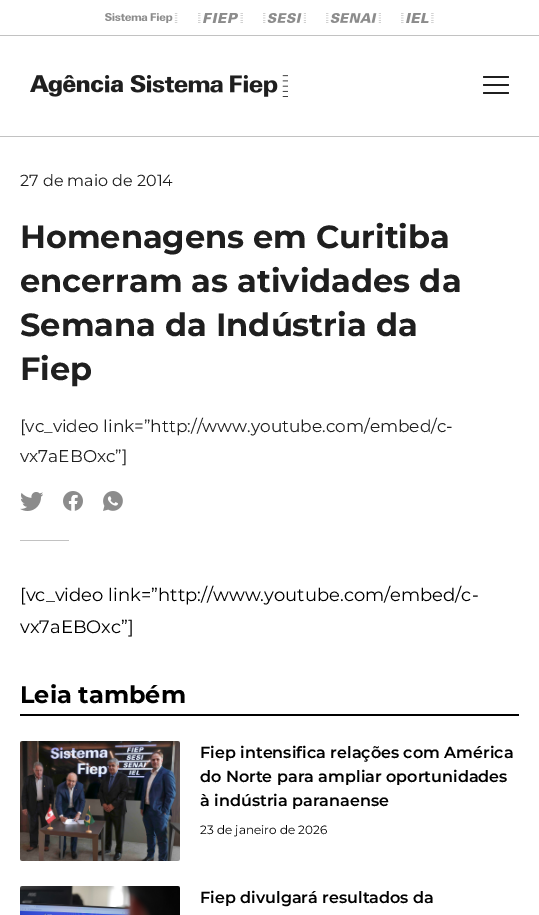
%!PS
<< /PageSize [539 915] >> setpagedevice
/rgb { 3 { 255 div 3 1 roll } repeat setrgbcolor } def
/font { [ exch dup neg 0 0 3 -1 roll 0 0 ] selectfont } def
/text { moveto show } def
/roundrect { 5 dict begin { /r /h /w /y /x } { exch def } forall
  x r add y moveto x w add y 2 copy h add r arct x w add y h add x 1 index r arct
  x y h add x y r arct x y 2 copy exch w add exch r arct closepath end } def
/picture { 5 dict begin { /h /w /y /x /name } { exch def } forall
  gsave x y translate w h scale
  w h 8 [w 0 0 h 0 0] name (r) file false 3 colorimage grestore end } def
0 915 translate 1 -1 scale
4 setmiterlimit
255 255 255 rgb
0 0 539 915 rectfill
194 194 194 rgb
0 35 539 1 rectfill
(img_01.rgb) 105 13 73 10 picture
(img_02.rgb) 198 13 45 10 picture
(img_03.rgb) 263 13 43 10 picture
(img_04.rgb) 326 13 55 10 picture
(img_05.rgb) 401 13 33 10 picture
0 136 539 1 rectfill
(img_06.rgb) 30 75 258 22 picture
31 31 31 rgb
483 76 26 2 1 roundrect fill
483 84 26 2 1 roundrect fill
483 92 26 2 1 roundrect fill
(img_07.rgb) 20 492 23 19 picture
(img_08.rgb) 63 491 20 20 picture
(img_09.rgb) 103 491 20 20 picture
194 194 194 rgb
20 540 49 1 rectfill
0 0 0 rgb
20 714 499 2 rectfill
(img_10.rgb) 20 741 160 120 picture
(img_11.rgb) 20 886 160 29 picture
/Montserrat-Regular 16 font
31 31 31 rgb
(27 de maio de 2014) 20 186 text
/Montserrat-Bold 32 font
(Homenagens em Curitiba) 20 248 text
(encerram as atividades da) 20 292 text
(Semana da Indústria da) 20 336 text
(Fiep) 20 380 text
/Montserrat-Regular 17 font
([vc_video link=”http://www.youtube.com/embed/c-) 20 432 text
(vx7aEBOxc”]) 20 462 text
/Montserrat-Regular 18 font
0 0 0 rgb
([vc_video link=”http://www.youtube.com/embed/c-) 20 601 text
(vx7aEBOxc”]) 20 633 text
/Montserrat-Bold 24 font
(Leia também) 20 703 text
/Montserrat-SemiBold 16 font
(Fiep intensifica relações com América) 200 758 text
(do Norte para ampliar oportunidades) 200 782 text
(à indústria paranaense) 200 806 text
/Montserrat-Regular 12 font
(23 de janeiro de 2026) 200 834 text
/Montserrat-SemiBold 16 font
(Fiep divulgará resultados da) 200 903 text
showpage
